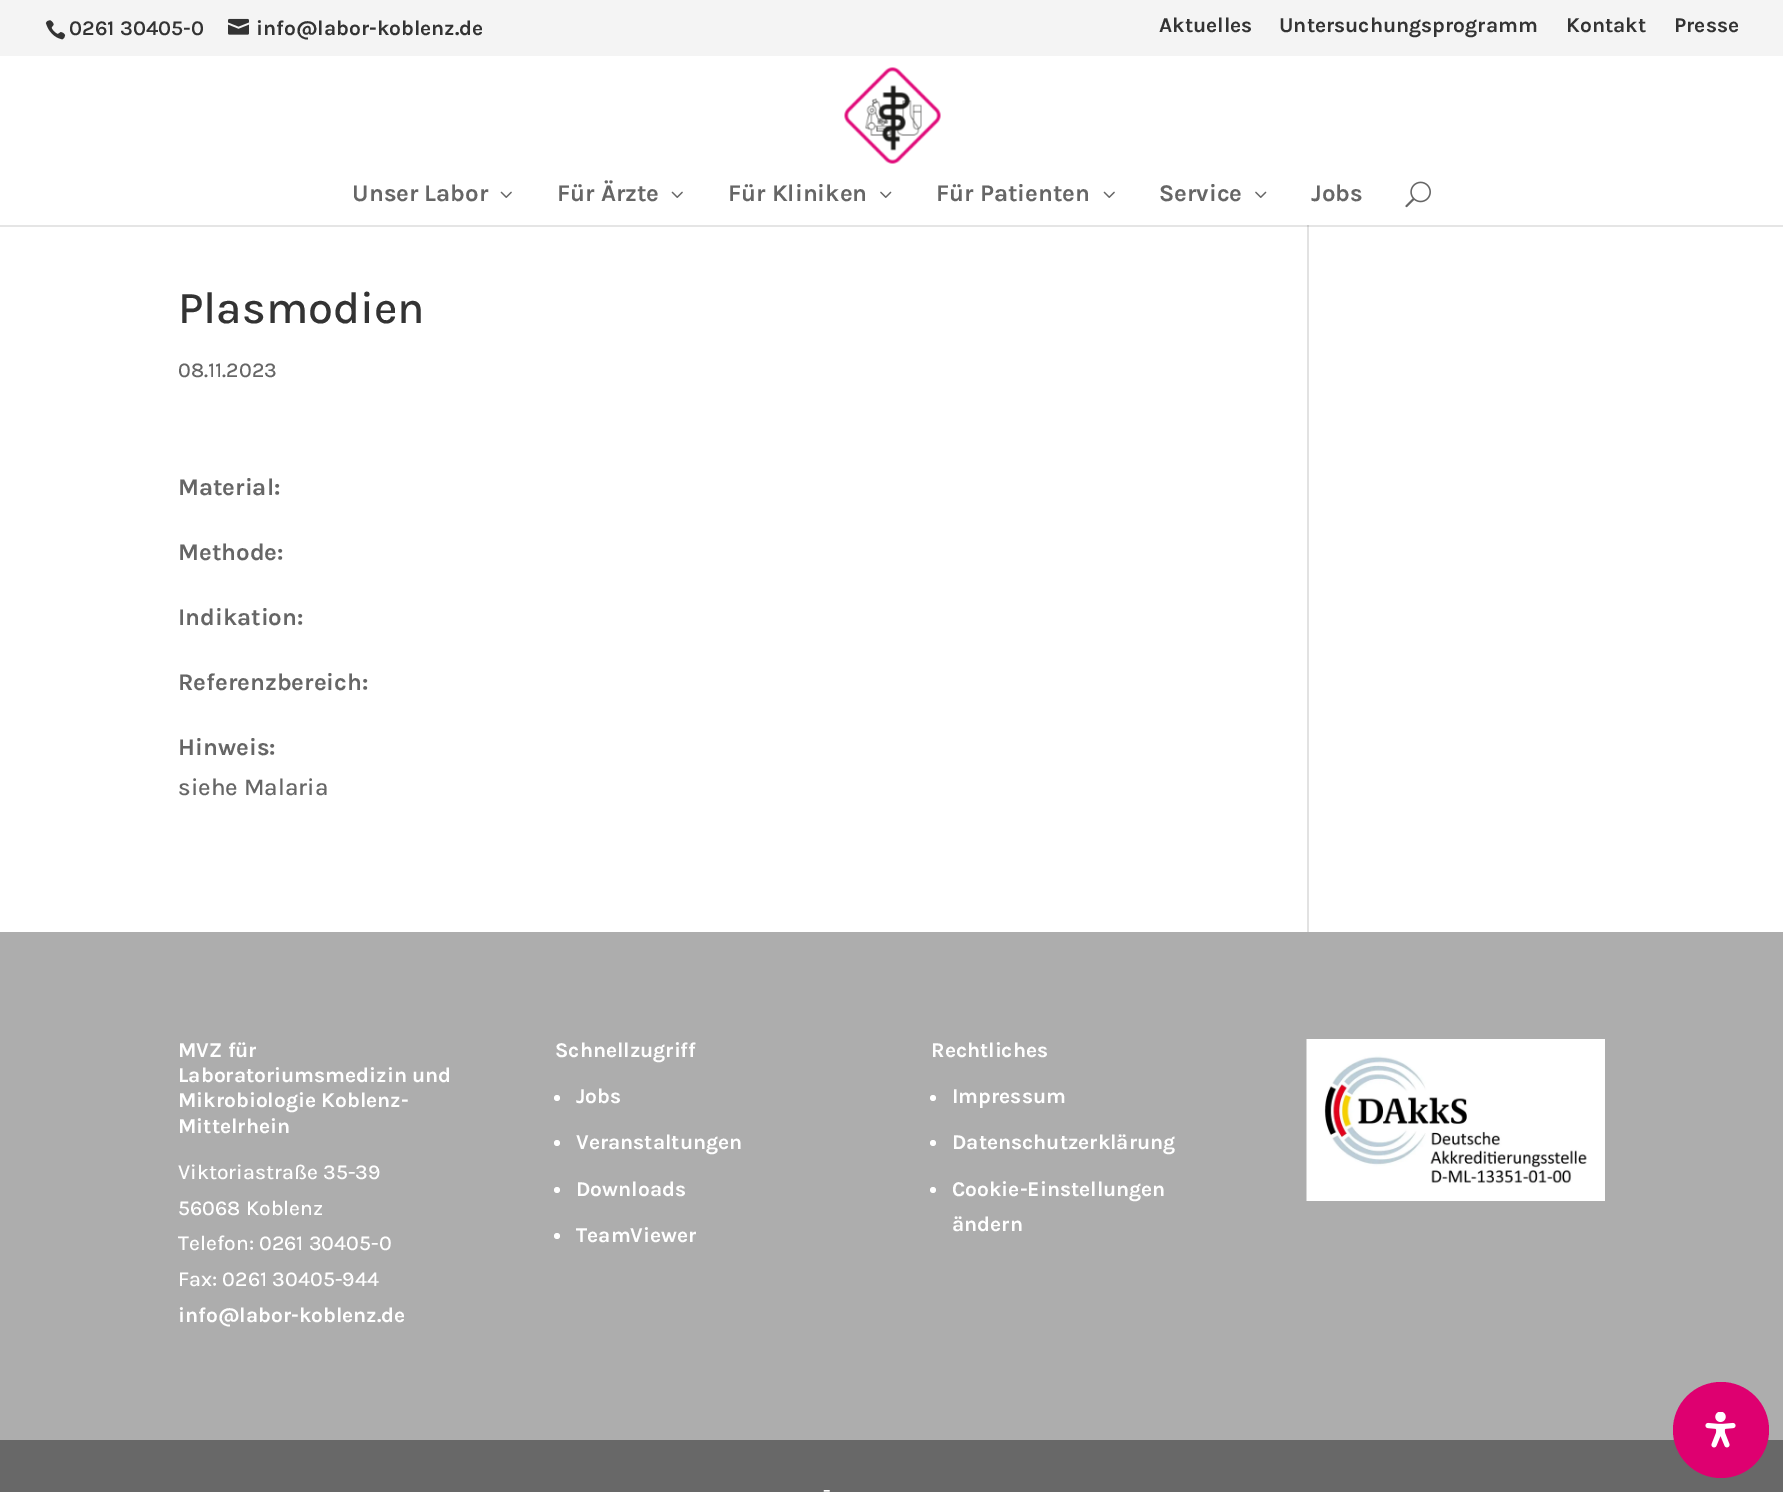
%!PS
<< /PageSize [1783 1492] /PageUsesTransparency true >> setpagedevice
/rgb { 3 { 255 div 3 1 roll } repeat setrgbcolor } def
/font { [ exch dup neg 0 0 3 -1 roll 0 0 ] selectfont } def
/text { moveto show } def
/alpha { dup .setfillconstantalpha .setstrokeconstantalpha } def
/circle { newpath 0 360 arc closepath } def
/picture { 5 dict begin { /h /w /y /x /name } { exch def } forall
  gsave x y translate w h scale
  w h 8 [w 0 0 h 0 0] name (r) file false 3 colorimage grestore end } def
0 .pushpdf14devicefilter
0 1492 translate 1 -1 scale
4 setmiterlimit
255 255 255 rgb
0 0 1783 1492 rectfill
244 244 244 rgb
0 0 1783 56 rectfill
(img_01.rgb) 45 20 21 20 picture
(img_02.rgb) 228 18 21 17 picture
226 226 226 rgb
1307 225 2 707 rectfill
0.1 alpha
0 0 0 rgb
0 225 moveto 0 2 rlineto 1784 0 rlineto 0 -170 rlineto 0 168 rlineto closepath fill
1 alpha
(img_03.rgb) 844 67 97 97 picture
(img_04.rgb) 500 191 12 7 picture
(img_04.rgb) 671 191 12 7 picture
(img_05.rgb) 880 191 12 7 picture
(img_04.rgb) 1103 191 12 7 picture
(img_05.rgb) 1255 191 12 7 picture
(img_06.rgb) 1405 181 26 27 picture
173 173 173 rgb
0 932 1783 508 rectfill
255 255 255 rgb
557 1098 3 circle fill
557 1143 3 circle fill
557 1190 3 circle fill
557 1236 3 circle fill
933 1098 3 circle fill
933 1143 3 circle fill
933 1190 3 circle fill
(img_07.rgb) 1306 1039 299 162 picture
104 104 104 rgb
0 1440 1783 52 rectfill
222 0 112 rgb
1721 1430 48 circle fill
(img_08.rgb) 1705 1412 31 36 picture
/Karla-SemiBold 21 font
51 51 51 rgb
(0261 30405-0) 69 35 text
/Karla-Bold 21 font
(info@labor-koblenz.de) 256 35 text
(Aktuelles) 1159 32 text
(Untersuchungsprogramm) 1279 32 text
(Kontakt) 1566 32 text
(Presse) 1674 32 text
/Karla-Bold 24 font
102 102 102 rgb
(Unser Labor) 352 201 text
(Für Ärzte) 557 201 text
(Für Kliniken) 728 201 text
(Für Patienten) 936 201 text
(Service) 1159 201 text
(Jobs) 1311 201 text
/Karla-Medium 45 font
51 51 51 rgb
(Plasmodien) 178 323 text
/Karla-Medium 21 font
102 102 102 rgb
(08.11.2023) 178 377 text
/Karla-Bold 24 font
(Material:) 178 495 text
(Methode:) 178 560 text
(Indikation:) 178 625 text
(Referenzbereich:) 178 690 text
(Hinweis:) 178 755 text
/Karla-Medium 24 font
(siehe Malaria) 178 795 text
/Karla-Bold 21 font
255 255 255 rgb
(MVZ für) 178 1057 text
(Laboratoriumsmedizin und) 178 1082 text
(Mikrobiologie Koblenz-) 178 1107 text
(Mittelrhein) 178 1133 text
/Karla-Medium 21 font
(Viktoriastraße 35-39) 178 1179 text
(56068 Koblenz) 178 1215 text
(Telefon: 0261 30405-0) 178 1250 text
(Fax: 0261 30405-944) 178 1286 text
/Karla-Bold 21 font
(info@labor-koblenz.de) 178 1322 text
(Schnellzugriff) 555 1057 text
(Jobs) 576 1103 text
(Veranstaltungen) 576 1149 text
(Downloads) 576 1196 text
(TeamViewer) 576 1242 text
(Rechtliches) 931 1057 text
(Impressum) 952 1103 text
(Datenschutzerklärung) 952 1149 text
(Cookie-Einstellungen) 952 1196 text
(ändern) 952 1231 text
/Karla-Medium 21 font
(-) 823 1497 text
.poppdf14devicefilter showpage
